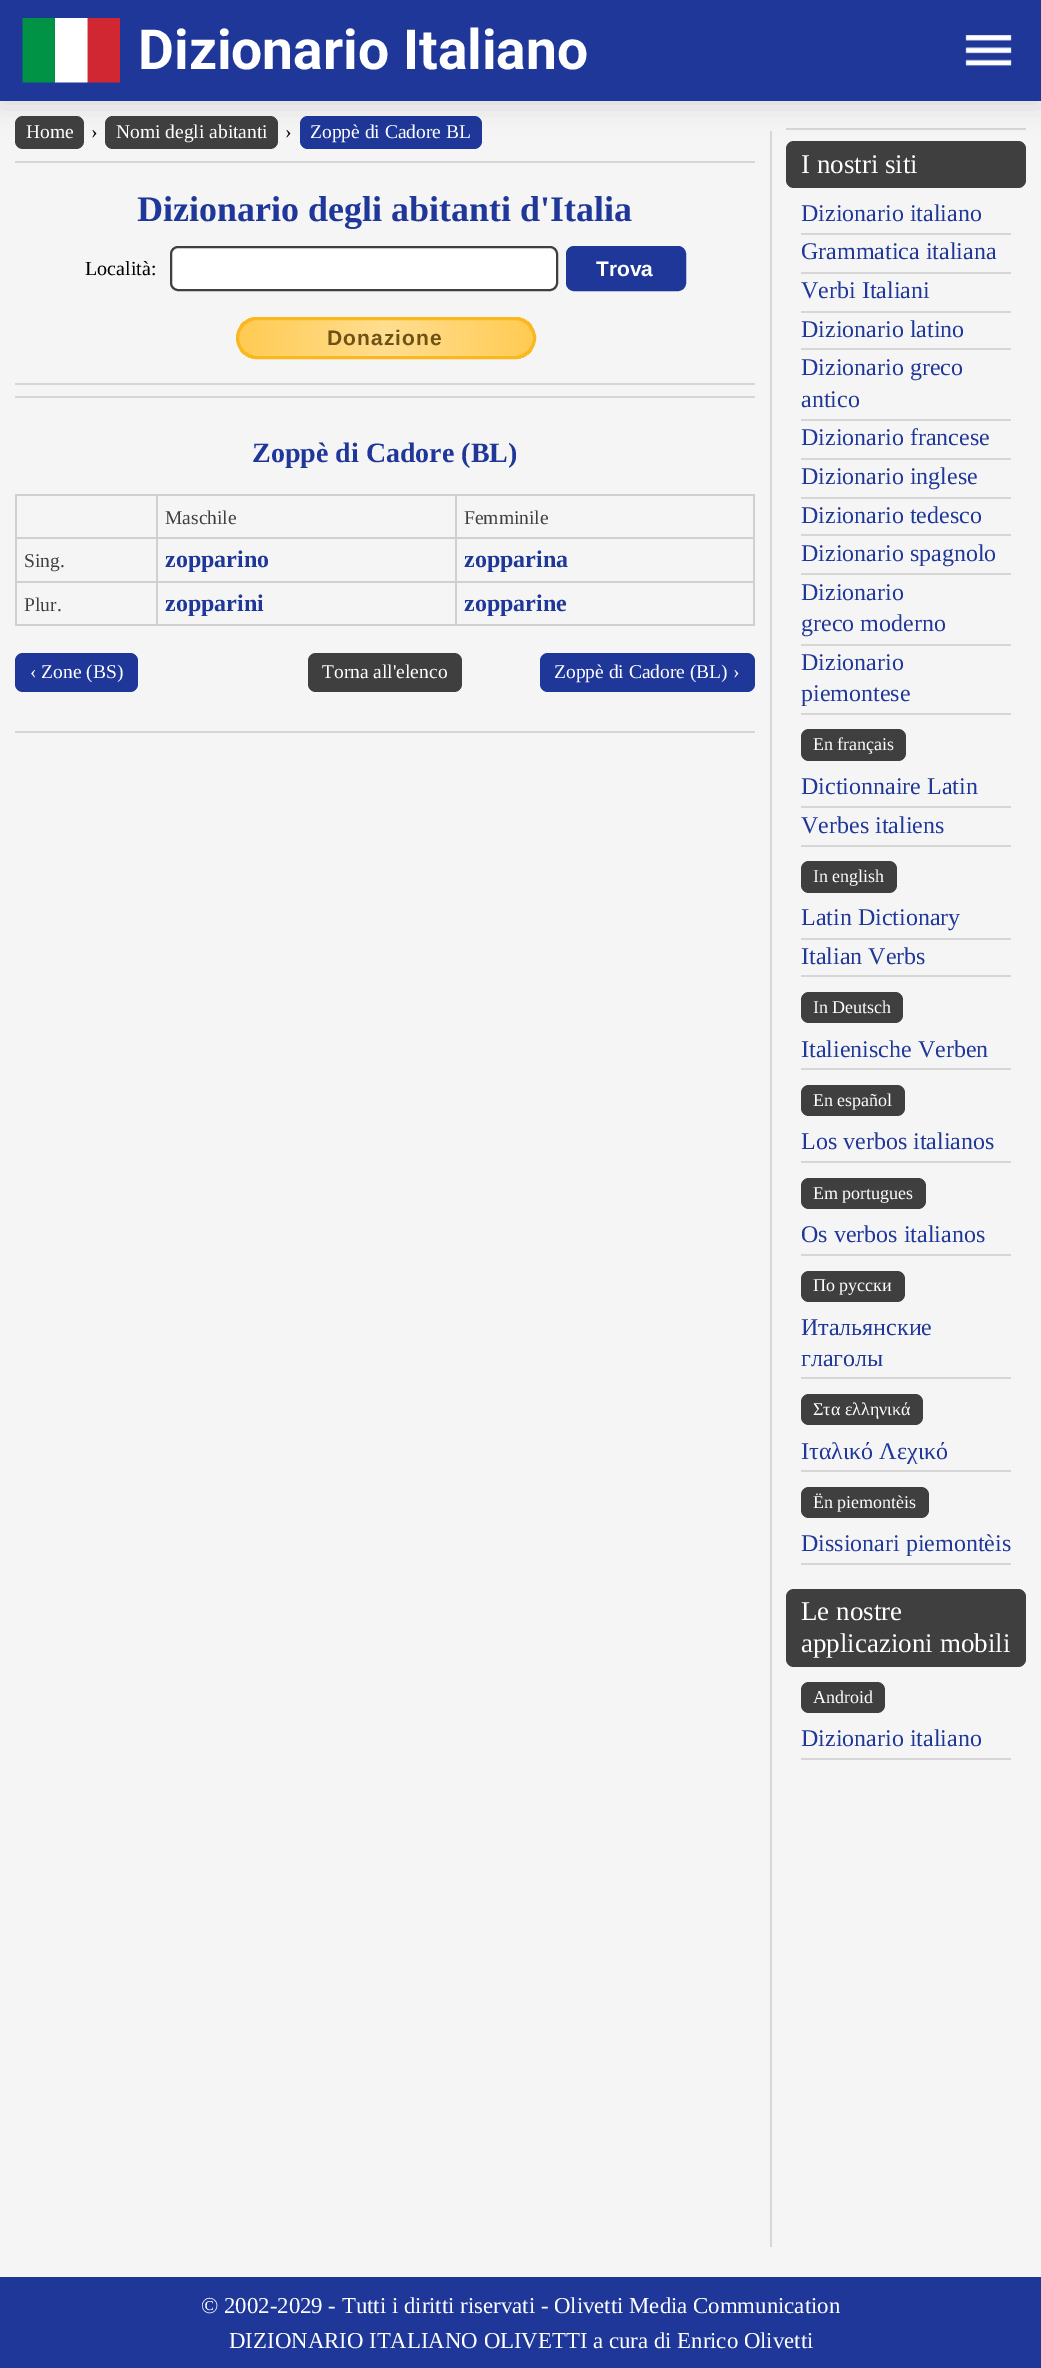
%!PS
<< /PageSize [1041 2368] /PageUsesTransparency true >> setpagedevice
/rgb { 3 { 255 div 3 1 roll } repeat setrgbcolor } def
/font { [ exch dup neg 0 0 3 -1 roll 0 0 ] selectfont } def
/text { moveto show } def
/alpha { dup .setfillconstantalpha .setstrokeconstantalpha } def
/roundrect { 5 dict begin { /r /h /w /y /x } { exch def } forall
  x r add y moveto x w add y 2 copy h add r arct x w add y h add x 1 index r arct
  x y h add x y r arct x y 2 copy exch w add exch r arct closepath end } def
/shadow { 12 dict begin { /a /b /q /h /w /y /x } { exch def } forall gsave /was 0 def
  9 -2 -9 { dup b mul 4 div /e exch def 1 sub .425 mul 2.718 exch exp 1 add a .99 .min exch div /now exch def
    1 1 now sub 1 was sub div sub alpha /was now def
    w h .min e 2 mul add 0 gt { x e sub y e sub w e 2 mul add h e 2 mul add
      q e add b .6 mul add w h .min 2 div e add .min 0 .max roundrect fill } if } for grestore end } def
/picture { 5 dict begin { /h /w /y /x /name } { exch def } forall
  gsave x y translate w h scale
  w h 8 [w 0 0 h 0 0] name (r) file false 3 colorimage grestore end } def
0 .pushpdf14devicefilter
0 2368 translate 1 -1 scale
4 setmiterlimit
245 245 245 rgb
0 0 1041 2368 rectfill
63 63 63 rgb
15 116 69 33 8 roundrect fill
105 116 173 33 8 roundrect fill
30 55 153 rgb
300 116 182 33 8 roundrect fill
214 214 214 rgb
770 131 2 2116 rectfill
786 128 240 2 rectfill
63 63 63 rgb
786 141 240 47 8 roundrect fill
0 0 0 rgb
0 8 1041 100 0 12 0.1 shadow
30 55 153 rgb
0 0 1041 101 rectfill
(img_01.rgb) 22 18 98 65 picture
(img_02.rgb) 965 35 47 31 picture
214 214 214 rgb
15 161 740 2 rectfill
255 255 255 rgb
171 247 386 43 7 roundrect gsave fill grestore
63 63 63 rgb
2 setlinewidth
stroke
30 55 153 rgb
567 247 118 43 7 roundrect gsave fill grestore
stroke
gsave
236 317 300 42 21 roundrect clip newpath
gsave 239 317 moveto 294 0 rlineto 0 42 rlineto -294 0 rlineto closepath clip newpath
<< /ShadingType 2 /ColorSpace /DeviceRGB /Coords [239 338 533 338] /Extend [true true] /Function << /FunctionType 3 /Domain [0 1] /Functions [<< /FunctionType 2 /Domain [0 1] /C0 [1 0.796 0.322] /C1 [1 0.871 0.569] /N 1 >> << /FunctionType 2 /Domain [0 1] /C0 [1 0.871 0.569] /C1 [1 0.796 0.322] /N 1 >>] /Bounds [0.5] /Encode [0 1 0 1] >> >> shfill grestore
grestore
250 184 30 rgb
3 setlinewidth
237.5 318.5 297 39 19.5 roundrect stroke
214 214 214 rgb
15 383 740 2 rectfill
15 396 740 2 rectfill
208 208 208 rgb
15 494 740 2 rectfill
753 494 2 132 rectfill
15 624 740 2 rectfill
15 494 2 132 rectfill
455 537 300 2 rectfill
455 581 300 2 rectfill
455 581 2 45 rectfill
156 581 300 2 rectfill
455 537 2 45 rectfill
156 537 300 2 rectfill
156 581 2 45 rectfill
15 581 143 2 rectfill
156 537 2 45 rectfill
15 537 143 2 rectfill
156 494 2 45 rectfill
455 494 2 45 rectfill
30 55 153 rgb
15 653 123 39 8 roundrect fill
63 63 63 rgb
308 653 154 39 8 roundrect fill
30 55 153 rgb
540 653 215 39 8 roundrect fill
214 214 214 rgb
15 731 740 2 rectfill
801 233 210 2 rectfill
801 272 210 2 rectfill
801 311 210 2 rectfill
801 348 210 2 rectfill
801 419 210 2 rectfill
801 458 210 2 rectfill
801 497 210 2 rectfill
801 534 210 2 rectfill
801 573 210 2 rectfill
801 644 210 2 rectfill
801 713 210 2 rectfill
63 63 63 rgb
801 729 105 32 8 roundrect fill
214 214 214 rgb
801 806 210 2 rectfill
801 845 210 2 rectfill
63 63 63 rgb
801 861 96 32 8 roundrect fill
214 214 214 rgb
801 938 210 2 rectfill
801 975 210 2 rectfill
63 63 63 rgb
801 992 102 31 8 roundrect fill
214 214 214 rgb
801 1068 210 2 rectfill
63 63 63 rgb
801 1085 104 31 8 roundrect fill
214 214 214 rgb
801 1161 210 2 rectfill
63 63 63 rgb
801 1178 125 31 8 roundrect fill
214 214 214 rgb
801 1254 210 2 rectfill
63 63 63 rgb
801 1271 104 31 8 roundrect fill
214 214 214 rgb
801 1377 210 2 rectfill
63 63 63 rgb
801 1394 122 31 8 roundrect fill
214 214 214 rgb
801 1470 210 2 rectfill
63 63 63 rgb
801 1487 128 31 8 roundrect fill
214 214 214 rgb
801 1563 210 2 rectfill
63 63 63 rgb
786 1589 240 78 8 roundrect fill
801 1682 84 31 8 roundrect fill
214 214 214 rgb
801 1758 210 2 rectfill
30 55 153 rgb
0 2277 1041 91 rectfill
/Roboto-Bold 55.25 font
255 255 255 rgb
(Dizionario Italiano) 138 69 text
/LiberationSerif-Regular 19.5 font
(Home) 26 138 text
0 0 0 rgb
(›) 91 138 text
255 255 255 rgb
(Nomi degli abitanti) 116 138 text
0 0 0 rgb
(›) 285 138 text
255 255 255 rgb
(Zoppè di Cadore BL) 310 138 text
/LiberationSerif-Bold 36 font
30 55 153 rgb
(Dizionario degli abitanti d'Italia) 137 221 text
/LiberationSerif-Regular 20 font
0 0 0 rgb
(Località:) 85 275 text
/LiberationSans-Bold 21 font
255 255 255 rgb
(Trova) 596 276 text
109 82 20 rgb
327 345 moveto 1.1 0 (Donazione) ashow
/LiberationSerif-Bold 28 font
30 55 153 rgb
(Zoppè di Cadore \(BL\)) 252 462 text
/LiberationSerif-Regular 19.5 font
63 63 63 rgb
(Maschile) 165 524 text
(Femminile) 464 524 text
(Sing.) 24 567 text
/LiberationSerif-Bold 24 font
30 55 153 rgb
(zopparino) 165 567 text
(zopparina) 464 567 text
/LiberationSerif-Regular 19.5 font
63 63 63 rgb
(Plur.) 24 611 text
/LiberationSerif-Bold 24 font
30 55 153 rgb
(zopparini) 165 611 text
(zopparine) 464 611 text
/LiberationSerif-Regular 19.5 font
255 255 255 rgb
(‹ Zone \(BS\)) 30 678 text
(Torna all'elenco) 322 678 text
(Zoppè di Cadore \(BL\) ›) 554 678 text
/LiberationSerif-Regular 27 font
(I nostri siti) 801 173 text
/LiberationSerif-Regular 24 font
30 55 153 rgb
(Dizionario italiano) 801 221 text
(Grammatica italiana) 801 259 text
(Verbi Italiani) 801 298 text
(Dizionario latino) 801 337 text
(Dizionario greco) 801 375 text
(antico) 801 407 text
(Dizionario francese) 801 445 text
(Dizionario inglese) 801 484 text
(Dizionario tedesco) 801 523 text
(Dizionario spagnolo) 801 561 text
(Dizionario) 801 600 text
(greco moderno) 801 631 text
(Dizionario) 801 670 text
(piemontese) 801 701 text
/LiberationSerif-Regular 18 font
255 255 255 rgb
(En français) 813 750 text
/LiberationSerif-Regular 24 font
30 55 153 rgb
(Dictionnaire Latin) 801 794 text
(Verbes italiens) 801 833 text
/LiberationSerif-Regular 18 font
255 255 255 rgb
(In english) 813 882 text
/LiberationSerif-Regular 24 font
30 55 153 rgb
(Latin Dictionary) 801 925 text
(Italian Verbs) 801 964 text
/LiberationSerif-Regular 18 font
255 255 255 rgb
(In Deutsch) 813 1013 text
/LiberationSerif-Regular 24 font
30 55 153 rgb
(Italienische Verben) 801 1057 text
/LiberationSerif-Regular 18 font
255 255 255 rgb
(En español) 813 1106 text
/LiberationSerif-Regular 24 font
30 55 153 rgb
(Los verbos italianos) 801 1149 text
/LiberationSerif-Regular 18 font
255 255 255 rgb
(Em portugues) 813 1199 text
/LiberationSerif-Regular 24 font
30 55 153 rgb
(Os verbos italianos) 801 1242 text
/LiberationSerif-Regular 18 font
255 255 255 rgb
(По русски) 813 1291 text
/LiberationSerif-Regular 24 font
30 55 153 rgb
(Итальянские) 801 1335 text
(глаголы) 801 1366 text
/LiberationSerif-Regular 18 font
255 255 255 rgb
(Στα ελληνικά) 813 1415 text
/LiberationSerif-Regular 24 font
30 55 153 rgb
(Ιταλικό Λεχικό) 801 1459 text
/LiberationSerif-Regular 18 font
255 255 255 rgb
(Ën piemontèis) 813 1508 text
/LiberationSerif-Regular 24 font
30 55 153 rgb
(Dissionari piemontèis) 801 1551 text
/LiberationSerif-Regular 27 font
255 255 255 rgb
(Le nostre) 801 1620 text
(applicazioni mobili) 801 1652 text
/LiberationSerif-Regular 18 font
(Android) 813 1703 text
/LiberationSerif-Regular 24 font
30 55 153 rgb
(Dizionario italiano) 801 1746 text
/LiberationSerif-Regular 22.8 font
255 255 255 rgb
(© 2002-2029 - Tutti i diritti riservati - Olivetti Media Communication) 201 2313 text
(DIZIONARIO ITALIANO OLIVETTI a cura di Enrico Olivetti) 229 2348 text
.poppdf14devicefilter showpage
